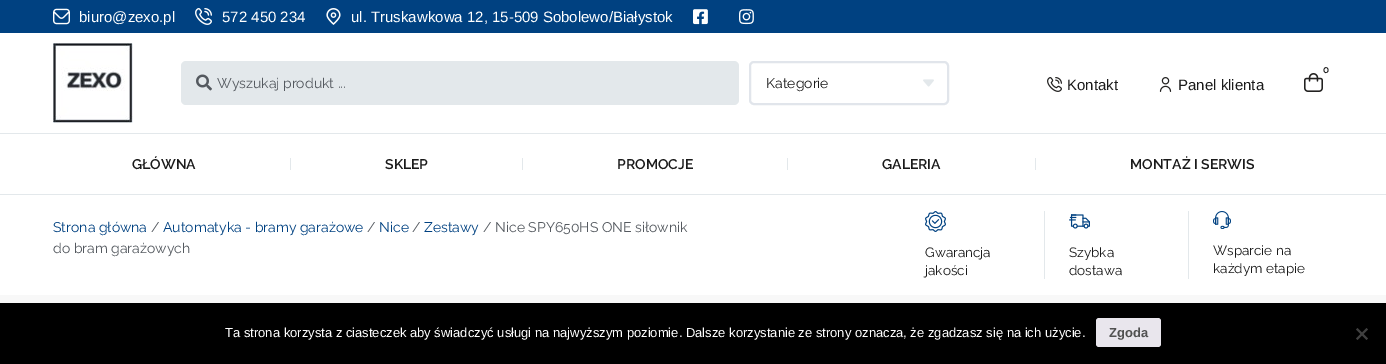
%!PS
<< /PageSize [1386 364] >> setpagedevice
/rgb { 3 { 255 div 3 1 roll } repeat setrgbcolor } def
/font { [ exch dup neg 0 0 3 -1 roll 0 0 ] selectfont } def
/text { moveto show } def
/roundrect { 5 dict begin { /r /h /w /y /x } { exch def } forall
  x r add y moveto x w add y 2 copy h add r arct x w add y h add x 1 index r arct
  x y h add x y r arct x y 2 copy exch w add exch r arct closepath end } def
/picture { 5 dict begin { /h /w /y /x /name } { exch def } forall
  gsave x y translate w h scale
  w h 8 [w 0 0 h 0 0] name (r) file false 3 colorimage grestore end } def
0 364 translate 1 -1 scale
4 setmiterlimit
248 248 248 rgb
0 0 1386 364 rectfill
0 65 129 rgb
0 0 1386 33 rectfill
(img_01.rgb) 53 8 17 17 picture
(img_02.rgb) 195 8 17 17 picture
(img_03.rgb) 326 8 15 17 picture
(img_04.rgb) 693 9 15 16 picture
(img_05.rgb) 739 9 15 16 picture
255 255 255 rgb
0 33 1386 100 rectfill
(img_06.rgb) 53 43 80 80 picture
227 232 235 rgb
181 61 558 44 5 roundrect fill
(img_07.rgb) 196 74 16 17 picture
225 229 235 rgb
2 setlinewidth
750 62 198 42 4 roundrect stroke
(img_08.rgb) 923 79 11 8 picture
(img_09.rgb) 1304 73 19 19 picture
(img_10.rgb) 1047 77 15 15 picture
(img_11.rgb) 1159 77 13 15 picture
255 255 255 rgb
0 134 1386 60 rectfill
227 232 235 rgb
0 133 1386 1 rectfill
0 194 1386 1 rectfill
290 158 1 12 rectfill
522 158 1 12 rectfill
787 158 1 12 rectfill
1035 158 1 12 rectfill
255 255 255 rgb
0 195 1386 100 rectfill
227 232 235 rgb
1044 211 1 68 rectfill
(img_12.rgb) 925 211 21 21 picture
1188 211 1 68 rectfill
(img_13.rgb) 1069 214 21 15 picture
(img_14.rgb) 1213 211 18 18 picture
0 0 0 rgb
0 303 1386 61 rectfill
233 230 237 rgb
1096 318 65 29 3 roundrect fill
64 64 64 rgb
1366.5 328 moveto 1.5 1.5 rlineto -10.5 10.5 rlineto -1.5 -1.5 rlineto closepath fill
1356 329.5 moveto 1.5 -1.5 rlineto 10.5 10.5 rlineto -1.5 1.5 rlineto closepath fill
/LiberationSans-Regular 15 font
255 255 255 rgb
(biuro@zexo.pl) 79 22 text
(572 450 234) 222 22 text
(ul. Truskawkowa 12, 15-509 Sobolewo/Białystok) 351 22 text
/Raleway-Regular 14 font
84 89 95 rgb
(Wyszukaj produkt ...) 217 88 text
26 26 26 rgb
(Kategorie) 766 88 text
/Raleway-SemiBold 10 font
(0) 1323 73 text
/LiberationSans-Regular 15 font
(Kontakt) 1067 90 text
(Panel klienta) 1178 90 text
/Raleway-SemiBold 14 font
(GŁÓWNA) 132 169 text
(SKLEP) 385 169 text
(PROMOCJE) 617 169 text
(GALERIA) 882 169 text
(MONTAŻ I SERWIS) 1130 169 text
/Raleway-Regular 14 font
0 65 129 rgb
(Strona główna) 53 232 text
84 89 95 rgb
(/) 151 232 text
0 65 129 rgb
(Automatyka - bramy garażowe) 163 232 text
84 89 95 rgb
(/) 367 232 text
0 65 129 rgb
(Nice) 379 232 text
84 89 95 rgb
(/) 412 232 text
0 65 129 rgb
(Zestawy) 424 232 text
84 89 95 rgb
(/ Nice SPY650HS ONE siłownik) 483 232 text
(do bram garażowych) 53 253 text
/Raleway-Regular 13.5 font
26 26 26 rgb
(Gwarancja) 925 257 text
(jakości) 925 275 text
(Szybka) 1069 257 text
(dostawa) 1069 275 text
(Wsparcie na) 1213 255 text
(każdym etapie) 1213 273 text
/LiberationSans-Regular 13 font
255 255 255 rgb
(Ta strona korzysta z ciasteczek aby świadczyć usługi na najwyższym poziomie. Dalsze korzystanie ze strony oznacza, że zgadzasz się na ich użycie.) 225 337 text
/LiberationSans-Bold 13 font
81 81 81 rgb
(Zgoda) 1109 337 text
showpage
